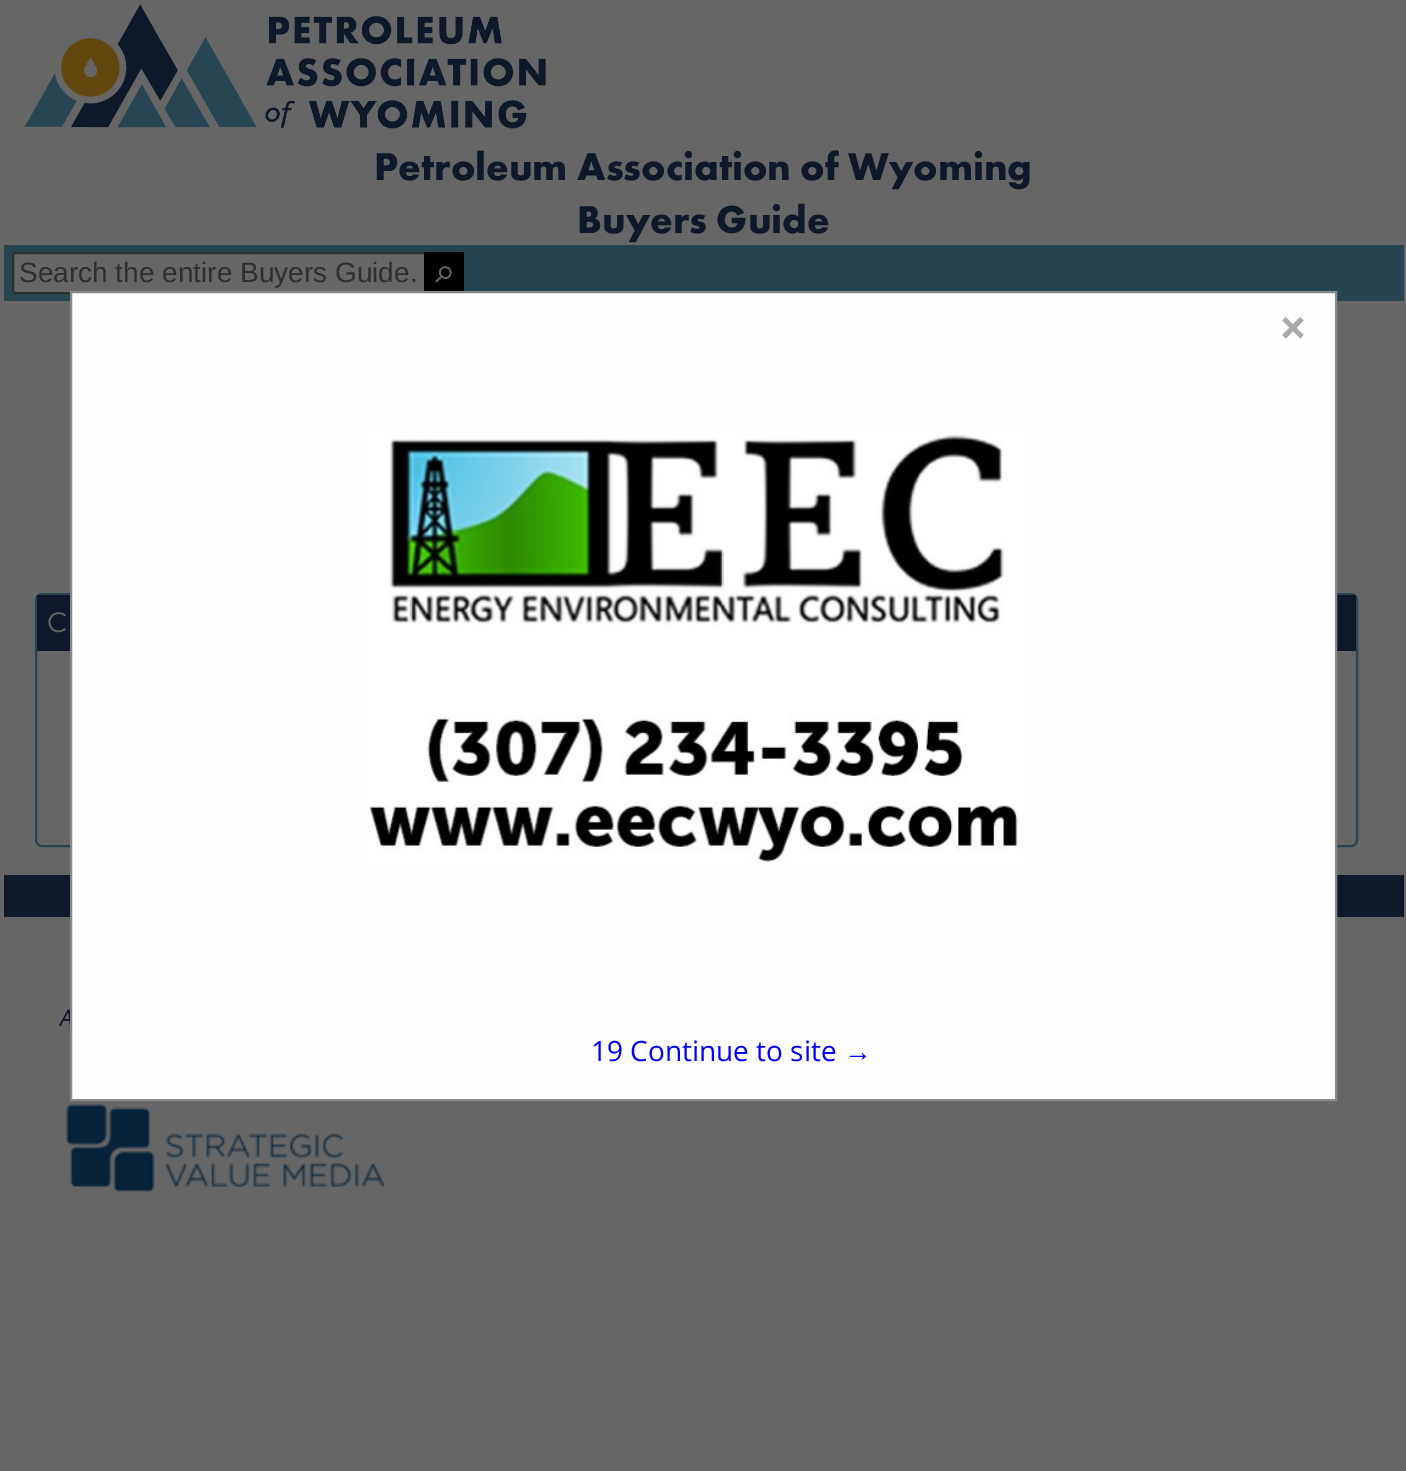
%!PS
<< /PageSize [1406 1471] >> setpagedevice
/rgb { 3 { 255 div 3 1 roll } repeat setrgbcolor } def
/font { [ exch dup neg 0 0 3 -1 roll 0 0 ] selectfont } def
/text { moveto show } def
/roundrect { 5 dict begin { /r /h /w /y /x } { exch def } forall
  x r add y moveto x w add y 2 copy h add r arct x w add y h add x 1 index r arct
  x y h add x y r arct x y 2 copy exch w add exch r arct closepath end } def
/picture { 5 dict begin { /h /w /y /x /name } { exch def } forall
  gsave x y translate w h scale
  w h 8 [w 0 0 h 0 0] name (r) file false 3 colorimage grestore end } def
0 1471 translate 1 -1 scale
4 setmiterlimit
102 102 102 rgb
0 0 1406 1471 rectfill
(img_01.rgb) 23 4 523 125 picture
39 69 81 rgb
4 245 1400 56 rectfill
102 102 102 rgb
13 253 450 40 3 roundrect gsave fill grestore
47 47 47 rgb
2 setlinewidth
stroke
0 0 0 rgb
424 252 40 39 rectfill
39 69 81 rgb
36 594 1321 252 6 roundrect stroke
14 24 41 rgb
37 595 1319 56 rectfill
4 875 1400 42 rectfill
(img_03.rgb) 66 1103 320 90 picture
/FuturaPT-Bold 40.25 font
(Petroleum Association of Wyoming) 374 180 text
(Buyers Guide) 577 233 text
/LiberationSans-Regular 28 font
47 47 47 rgb
(Search the entire Buyers Guide.) 19 282 text
/DejaVuSans-Regular 23 font
102 102 102 rgb
gsave 432 274 translate 45 rotate 0 0 moveto (⚲) show grestore
/Montserrat-Regular 28 font
(C) 47 632 text
/OpenSans-Italic 23 font
14 24 41 rgb
(A) 60 1026 text
254 254 254 rgb
71 292 moveto 1265 0 rlineto 0 808 rlineto -1265 0 rlineto closepath gsave fill grestore
136 136 136 rgb
stroke
/LiberationSans-Regular 28 font
0 0 255 rgb
(→) 844 1061 text
/OpenSans-Regular 28 font
(19 Continue to site) 591 1061 text
(img_02.rgb) 370 434 654 428 picture
/OpenSans-Bold 49 font
170 170 170 rgb
(×) 1279 345 text
showpage
